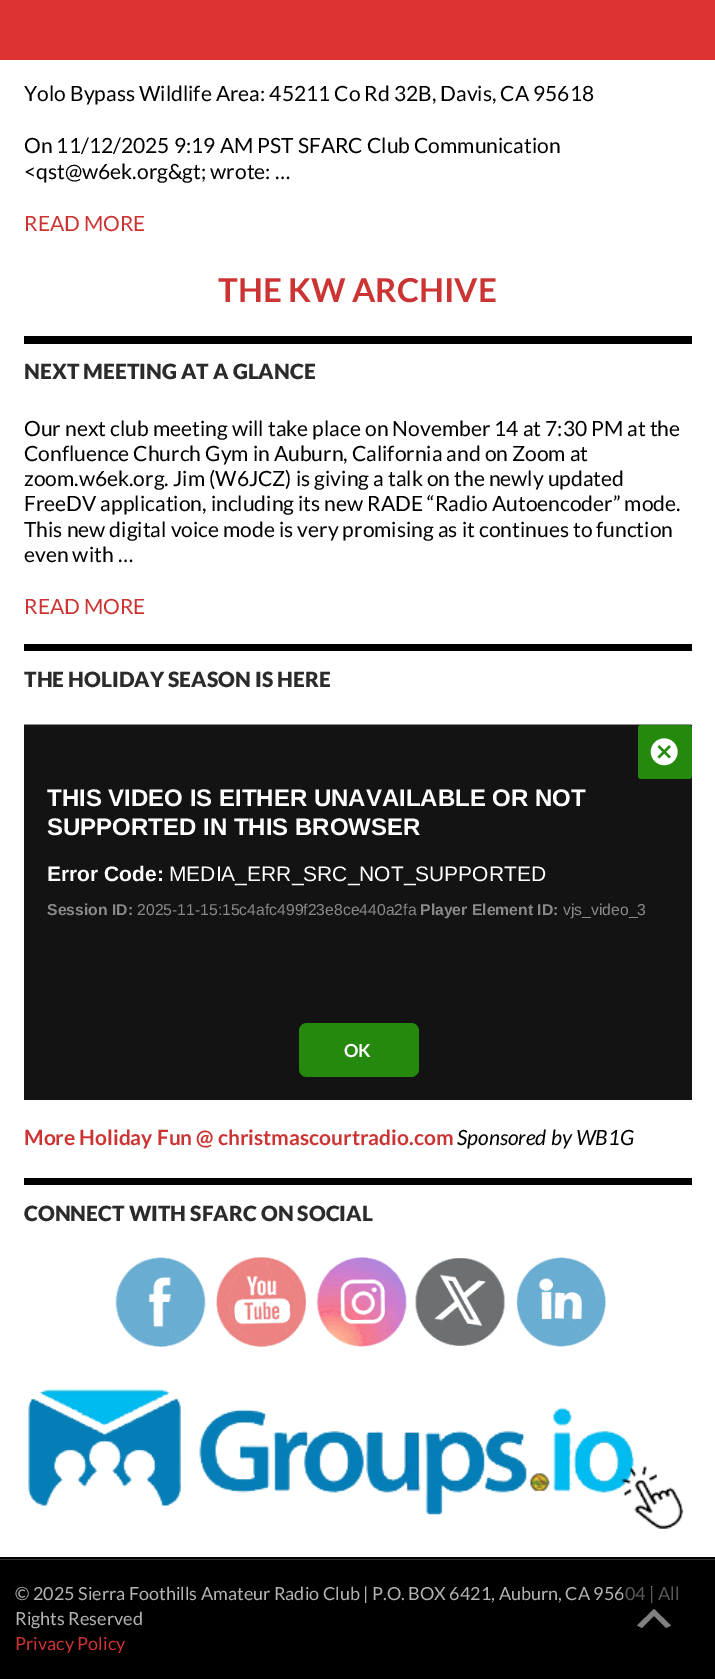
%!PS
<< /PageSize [715 1679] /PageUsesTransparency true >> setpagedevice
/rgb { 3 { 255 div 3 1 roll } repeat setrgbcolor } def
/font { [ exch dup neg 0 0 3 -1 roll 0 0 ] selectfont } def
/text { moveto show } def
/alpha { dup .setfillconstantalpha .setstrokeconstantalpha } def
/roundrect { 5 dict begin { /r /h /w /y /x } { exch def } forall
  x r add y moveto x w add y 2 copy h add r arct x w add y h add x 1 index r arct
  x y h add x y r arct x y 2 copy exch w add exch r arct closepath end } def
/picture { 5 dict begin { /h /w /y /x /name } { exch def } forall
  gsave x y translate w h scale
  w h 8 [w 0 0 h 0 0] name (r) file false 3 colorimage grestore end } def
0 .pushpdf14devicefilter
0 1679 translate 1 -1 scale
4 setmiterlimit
255 255 255 rgb
0 0 715 1679 rectfill
221 51 51 rgb
0 0 715 60 rectfill
0 0 0 rgb
24 336 668 8 rectfill
24 644 668 7 rectfill
(img_01.rgb) 24 724 668 1 picture
(img_02.rgb) 24 724 668 1 picture
19 19 19 rgb
24 725 668 375 rectfill
36 137 13 rgb
638 725 54 54 3 roundrect fill
(img_03.rgb) 650 738 28 28 picture
299 1023 120 54 8 roundrect fill
0 0 0 rgb
24 1178 668 7 rectfill
(img_04.rgb) 115 1257 91 90 picture
(img_05.rgb) 216 1257 90 90 picture
(img_06.rgb) 316 1257 91 90 picture
(img_07.rgb) 415 1258 90 89 picture
(img_08.rgb) 516 1257 90 90 picture
(img_09.rgb) 28 1389 656 140 picture
0 1557 715 2 rectfill
51 51 51 rgb
0 1559 715 1 rectfill
0 0 0 rgb
0 1560 715 119 rectfill
/Lato-Regular 21 font
(Yolo Bypass Wildlife Area: 45211 Co Rd 32B, Davis, CA 95618) 24 101 text
(On 11/12/2025 9:19 AM PST SFARC Club Communication) 24 153 text
(<qst@w6ek.org&gt; wrote: …) 24 179 text
204 52 51 rgb
(READ MORE) 24 231 text
/Lato-Bold 33 font
(THE KW ARCHIVE) 218 302 text
/Lato-Black 21 font
43 43 43 rgb
(NEXT MEETING AT A GLANCE) 24 379 text
/Lato-Regular 21 font
0 0 0 rgb
(Our next club meeting will take place on November 14 at 7:30 PM at the) 24 436 text
(Confluence Church Gym in Auburn, California and on Zoom at) 24 461 text
(zoom.w6ek.org. Jim \(W6JCZ\) is giving a talk on the newly updated) 24 486 text
(FreeDV application, including its new RADE “Radio Autoencoder” mode.) 24 511 text
(This new digital voice mode is very promising as it continues to function) 24 537 text
(even with …) 24 562 text
204 52 51 rgb
(READ MORE) 24 614 text
/Lato-Black 21 font
43 43 43 rgb
(THE HOLIDAY SEASON IS HERE) 24 687 text
gsave
47 747 622 261 rectclip
/LiberationSans-Bold 24 font
255 255 255 rgb
(THIS VIDEO IS EITHER UNAVAILABLE OR NOT) 47 806 text
grestore
/LiberationSans-Bold 24 font
255 255 255 rgb
(SUPPORTED IN THIS BROWSER) 47 835 text
/LiberationSans-Bold 21 font
(Error Code:) 47 881 text
/LiberationSans-Regular 21 font
(MEDIA_ERR_SRC_NOT_SUPPORTED) 169 881 text
/LiberationSans-Bold 15.75 font
137 137 137 rgb
(Session ID:) 47 915 text
/LiberationSans-Regular 15.75 font
(2025-11-15:15c4afc499f23e8ce440a2fa) 137 915 text
/LiberationSans-Bold 15.75 font
(Player Element ID:) 420 915 text
/LiberationSans-Regular 15.75 font
(vjs_video_3) 563 915 text
/Lato-Bold 18 font
255 255 255 rgb
(OK) 344 1057 text
/Lato-Bold 21 font
204 52 51 rgb
(More Holiday Fun @ christmascourtradio.com) 24 1145 text
/Lato-Italic 21 font
0 0 0 rgb
(Sponsored by WB1G) 457 1145 text
/Lato-Black 21 font
43 43 43 rgb
(CONNECT WITH SFARC ON SOCIAL) 24 1221 text
/Lato-Regular 18 font
179 179 179 rgb
(© 2025 Sierra Foothills Amateur Radio Club | P.O. BOX 6421, Auburn, CA 95604 | All) 15 1600 text
(Rights Reserved) 15 1625 text
204 52 51 rgb
(Privacy Policy) 15 1650 text
0.5 alpha
0 0 0 rgb
623 1587 63 63 3 roundrect fill
1 alpha
128 128 128 rgb
666 1628 moveto -12 -12 rlineto -12 12 rlineto -5 -2.5 rlineto 17 -16.5 rlineto 17 16.5 rlineto closepath fill
.poppdf14devicefilter showpage
